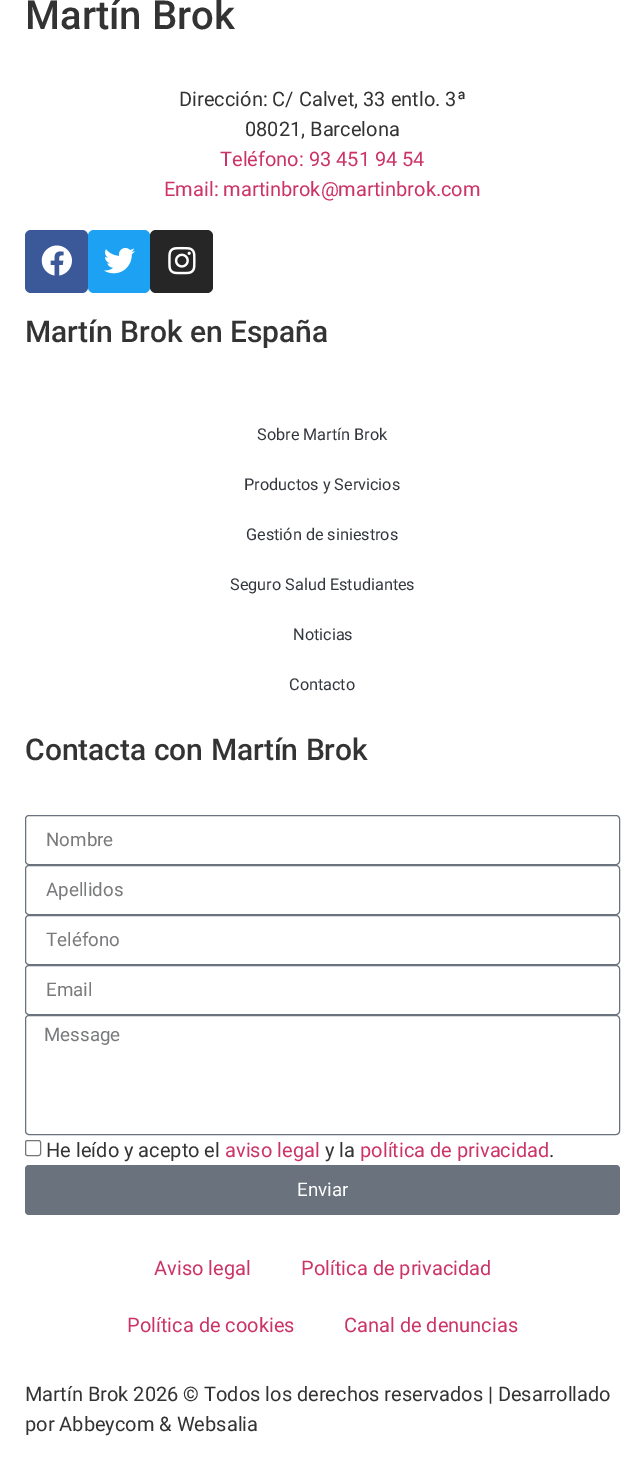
%!PS
<< /PageSize [644 1465] >> setpagedevice
/rgb { 3 { 255 div 3 1 roll } repeat setrgbcolor } def
/font { [ exch dup neg 0 0 3 -1 roll 0 0 ] selectfont } def
/text { moveto show } def
/roundrect { 5 dict begin { /r /h /w /y /x } { exch def } forall
  x r add y moveto x w add y 2 copy h add r arct x w add y h add x 1 index r arct
  x y h add x y r arct x y 2 copy exch w add exch r arct closepath end } def
/picture { 5 dict begin { /h /w /y /x /name } { exch def } forall
  gsave x y translate w h scale
  w h 8 [w 0 0 h 0 0] name (r) file false 3 colorimage grestore end } def
0 1465 translate 1 -1 scale
4 setmiterlimit
255 255 255 rgb
0 0 644 1465 rectfill
59 89 152 rgb
25 230 63 63 6 roundrect fill
(img_01.rgb) 41 245 31 31 picture
29 161 242 rgb
88 230 62 63 6 roundrect fill
(img_02.rgb) 104 247 31 27 picture
38 38 38 rgb
150 230 63 63 6 roundrect fill
(img_03.rgb) 168 246 28 29 picture
105 114 125 rgb
25.5 815.5 594 49 3.5 roundrect stroke
25.5 865.5 594 49 3.5 roundrect stroke
25.5 915.5 594 49 3.5 roundrect stroke
25.5 965.5 594 49 3.5 roundrect stroke
25.5 1015.5 594 119 3.5 roundrect stroke
118 118 118 rgb
25.5 1140.5 15 15 2 roundrect stroke
105 114 125 rgb
25 1165 595 50 4 roundrect fill
/Roboto-Medium 40 font
51 51 51 rgb
(Martín Brok) 25 29 text
/Roboto-Regular 20 font
(Dirección: C/ Calvet, 33 entlo. 3ª) 179 106 text
(08021, Barcelona) 245 136 text
204 51 102 rgb
(Teléfono: 93 451 94 54) 220 166 text
(Email: martinbrok@martinbrok.com) 164 196 text
/Roboto-Medium 30 font
51 51 51 rgb
(Martín Brok en España) 25 342 text
/Roboto-Regular 16.25 font
51 55 61 rgb
(Sobre Martín Brok) 257 440 text
(Productos y Servicios) 244 490 text
(Gestión de siniestros) 246 540 text
(Seguro Salud Estudiantes) 230 590 text
(Noticias) 293 640 text
(Contacto) 289 690 text
/Roboto-Medium 30 font
51 51 51 rgb
(Contacta con Martín Brok) 25 760 text
/Roboto-Regular 18.75 font
121 122 124 rgb
(Nombre) 46 846 text
(Apellidos) 46 896 text
(Teléfono) 46 946 text
(Email) 46 996 text
(Message) 44 1041 text
/Roboto-Regular 20 font
51 51 51 rgb
(He leído y acepto el) 46 1157 text
204 51 102 rgb
(aviso legal) 225 1157 text
51 51 51 rgb
(y la) 325 1157 text
204 51 102 rgb
(política de privacidad) 360 1157 text
51 51 51 rgb
(.) 549 1157 text
/Roboto-Regular 18.75 font
255 255 255 rgb
(Enviar) 297 1196 text
/Roboto-Regular 20 font
204 51 102 rgb
(Aviso legal) 154 1275 text
(Política de privacidad) 301 1275 text
(Política de cookies) 127 1332 text
(Canal de denuncias) 344 1332 text
51 51 51 rgb
(Martín Brok 2026 © Todos los derechos reservados | Desarrollado) 25 1401 text
(por Abbeycom & Websalia) 25 1431 text
showpage
